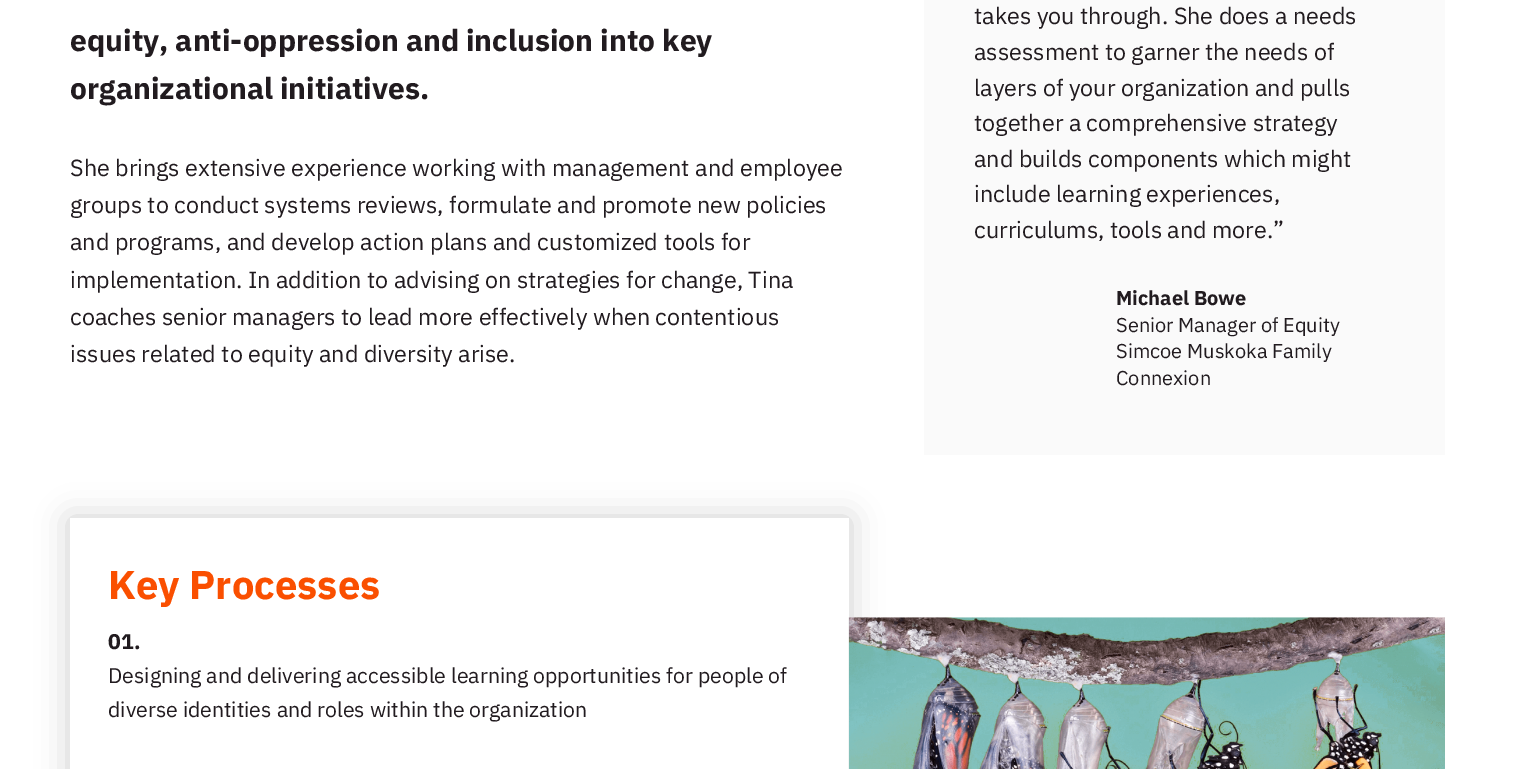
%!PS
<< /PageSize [1515 769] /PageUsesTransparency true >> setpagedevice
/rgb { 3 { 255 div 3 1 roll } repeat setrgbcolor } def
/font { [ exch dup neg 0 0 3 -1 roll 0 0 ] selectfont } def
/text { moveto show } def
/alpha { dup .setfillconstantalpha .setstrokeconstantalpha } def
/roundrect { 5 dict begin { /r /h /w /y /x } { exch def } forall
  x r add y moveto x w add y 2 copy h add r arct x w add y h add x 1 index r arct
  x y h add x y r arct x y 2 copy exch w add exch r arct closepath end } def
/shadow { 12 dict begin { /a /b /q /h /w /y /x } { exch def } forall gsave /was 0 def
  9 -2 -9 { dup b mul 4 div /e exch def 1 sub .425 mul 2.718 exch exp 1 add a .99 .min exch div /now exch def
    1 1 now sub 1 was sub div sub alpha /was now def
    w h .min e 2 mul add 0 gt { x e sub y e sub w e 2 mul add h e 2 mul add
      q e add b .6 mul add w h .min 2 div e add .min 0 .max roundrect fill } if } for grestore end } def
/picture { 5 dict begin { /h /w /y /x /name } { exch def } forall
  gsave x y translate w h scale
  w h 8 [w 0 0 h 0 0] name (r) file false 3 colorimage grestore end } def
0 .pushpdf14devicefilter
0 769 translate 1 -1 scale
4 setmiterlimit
255 255 255 rgb
0 0 1515 769 rectfill
250 250 250 rgb
924 0 521 455 rectfill
gsave
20 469 moveto 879 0 rlineto 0 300 rlineto -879 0 rlineto closepath 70 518 moveto 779 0 rlineto 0 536 rlineto -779 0 rlineto closepath eoclip newpath
85 85 85 rgb
69 518 781 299 0 16 0.29 shadow
grestore
(img_01.rgb) 848 617 597 152 picture
/IBMPlexSans-Bold 30 font
33 27 31 rgb
(equity, anti-oppression and inclusion into key) 70 51 text
(organizational initiatives.) 70 99 text
/IBMPlexSans-Regular 23.3 font
(She brings extensive experience working with management and employee) 70 176 text
(groups to conduct systems reviews, formulate and promote new policies) 70 213 text
(and programs, and develop action plans and customized tools for) 70 250 text
(implementation. In addition to advising on strategies for change, Tina) 70 288 text
(coaches senior managers to lead more effectively when contentious) 70 325 text
(issues related to equity and diversity arise.) 70 362 text
(takes you through. She does a needs) 974 24 text
(assessment to garner the needs of) 974 60 text
(layers of your organization and pulls) 974 96 text
(together a comprehensive strategy) 974 131 text
(and builds components which might) 974 167 text
(include learning experiences,) 974 202 text
(curriculums, tools and more.”) 974 238 text
/IBMPlexSans-Bold 20 font
(Michael Bowe) 1116 305 text
/IBMPlexSans-Regular 20 font
(Senior Manager of Equity) 1116 332 text
(Simcoe Muskoka Family) 1116 358 text
(Connexion) 1116 385 text
/IBMPlexSans-Bold 40 font
250 79 0 rgb
(Key Processes) 108 599 text
/IBMPlexSans-Bold 21.25 font
33 27 31 rgb
(01.) 108 649 text
/IBMPlexSans-Regular 21.25 font
(Designing and delivering accessible learning opportunities for people of) 108 683 text
(diverse identities and roles within the organization) 108 717 text
.poppdf14devicefilter showpage
